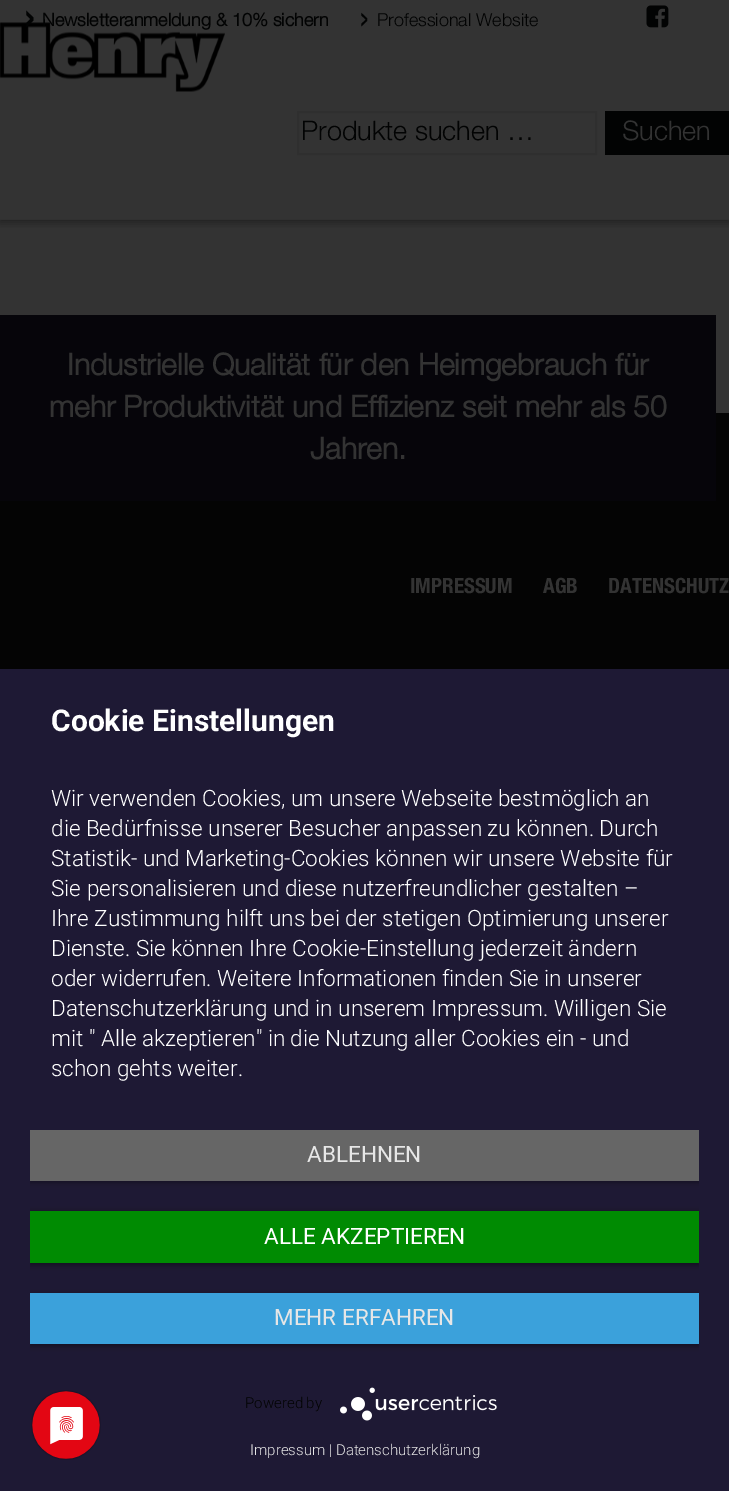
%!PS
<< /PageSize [729 1491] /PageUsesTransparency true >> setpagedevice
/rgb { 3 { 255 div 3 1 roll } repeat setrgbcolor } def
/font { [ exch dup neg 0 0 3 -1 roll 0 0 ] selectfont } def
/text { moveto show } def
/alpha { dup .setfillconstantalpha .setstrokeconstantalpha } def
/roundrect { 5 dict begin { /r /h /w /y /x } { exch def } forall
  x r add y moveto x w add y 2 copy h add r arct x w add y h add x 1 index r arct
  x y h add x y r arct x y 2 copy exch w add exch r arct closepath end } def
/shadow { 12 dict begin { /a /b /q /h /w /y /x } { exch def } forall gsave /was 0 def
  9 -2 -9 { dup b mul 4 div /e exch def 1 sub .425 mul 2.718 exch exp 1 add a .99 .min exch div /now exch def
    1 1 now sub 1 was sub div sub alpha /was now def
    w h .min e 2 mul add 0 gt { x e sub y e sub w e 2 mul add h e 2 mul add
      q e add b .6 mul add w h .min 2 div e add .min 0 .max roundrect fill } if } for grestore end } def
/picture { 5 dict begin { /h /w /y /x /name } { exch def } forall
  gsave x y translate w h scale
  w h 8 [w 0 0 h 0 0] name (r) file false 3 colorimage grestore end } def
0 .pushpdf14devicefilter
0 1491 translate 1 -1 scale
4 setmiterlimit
51 51 51 rgb
0 0 729 1491 rectfill
gsave
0 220 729 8 rectclip
0 0 0 rgb
0 3 729 219 0 4 0.35 shadow
grestore
49 49 49 rgb
0 219 729 1 rectfill
(img_01.rgb) 646 5 23 23 picture
(img_02.rgb) 0 22 225 70 picture
47 47 47 rgb
2 setlinewidth
298 112 298 42 rectstroke
2 3 3 rgb
605 111 124 44 rectfill
4 4 4 rgb
0 413 729 256 rectfill
6 5 10 rgb
0 315 716 186 rectfill
30 25 52 rgb
0 669 729 822 rectfill
gsave
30 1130 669 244 rectclip
0 0 0 rgb
30 1131 669 51 0 3 0.4 shadow
grestore
102 102 102 rgb
30 1130 669 51 rectfill
gsave
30 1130 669 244 rectclip
0 0 0 rgb
30 1212 669 53 0 3 0.4 shadow
grestore
0 139 2 rgb
30 1211 669 52 rectfill
gsave
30 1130 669 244 rectclip
0 0 0 rgb
30 1295 669 51 0 3 0.4 shadow
grestore
59 161 219 rgb
30 1293 669 51 rectfill
(img_03.rgb) 340 1387 157 34 picture
(img_04.rgb) 31 1390 70 70 picture
/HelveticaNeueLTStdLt-Bold 45 font
2 3 3 rgb
(›) 23 32 text
/HelveticaNeueLTStdLt-Bold 18 font
(Newsletteranmeldung & 10% sichern) 42 26 text
/HelveticaNeueLTStdLt-Light 45 font
(›) 358 32 text
/HelveticaNeueLTStdLt-Light 18 font
(Professional Website) 377 26 text
/HelveticaNeueLTStdLt-Light 27 font
(Produkte suchen …) 301 140 text
51 51 51 rgb
(Suchen) 622 140 text
/HelveticaNeueLTStdLt-Bold 30 font
(Industrielle Qualität für den Heimgebrauch für) 67 375 text
(mehr Produktivität und Effizienz seit mehr als 50) 49 417 text
(Jahren.) 310 459 text
/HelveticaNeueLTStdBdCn-Regular 21 font
(IMPRESSUM) 410 593 text
(AGB) 543 593 text
(DATENSCHUTZ) 608 593 text
/Roboto-Bold 30 font
255 255 255 rgb
(Cookie Einstellungen) 51 731 text
/Roboto-Light 22.5 font
(Wir verwenden Cookies, um unsere Webseite bestmöglich an) 51 806 text
(die Bedürfnisse unserer Besucher anpassen zu können. Durch) 51 836 text
(Statistik- und Marketing-Cookies können wir unsere Website für) 51 866 text
(Sie personalisieren und diese nutzerfreundlicher gestalten –) 51 896 text
(Ihre Zustimmung hilft uns bei der stetigen Optimierung unserer) 51 926 text
(Dienste. Sie können Ihre Cookie-Einstellung jederzeit ändern) 51 956 text
(oder widerrufen. Weitere Informationen finden Sie in unserer) 51 986 text
(Datenschutzerklärung und in unserem Impressum. Willigen Sie) 51 1016 text
(mit " Alle akzeptieren" in die Nutzung aller Cookies ein - und) 51 1046 text
(schon gehts weiter.) 51 1076 text
/Roboto-Regular 22.5 font
230 230 230 rgb
(ABLEHNEN) 307 1162 text
255 255 255 rgb
(ALLE AKZEPTIEREN) 264 1244 text
230 230 230 rgb
(MEHR ERFAHREN) 274 1325 text
/Roboto-Light 15 font
2 3 3 rgb
(Powered by) 245 1408 text
230 230 230 rgb
(Impressum | Datenschutzerklärung) 250 1455 text
.poppdf14devicefilter showpage
